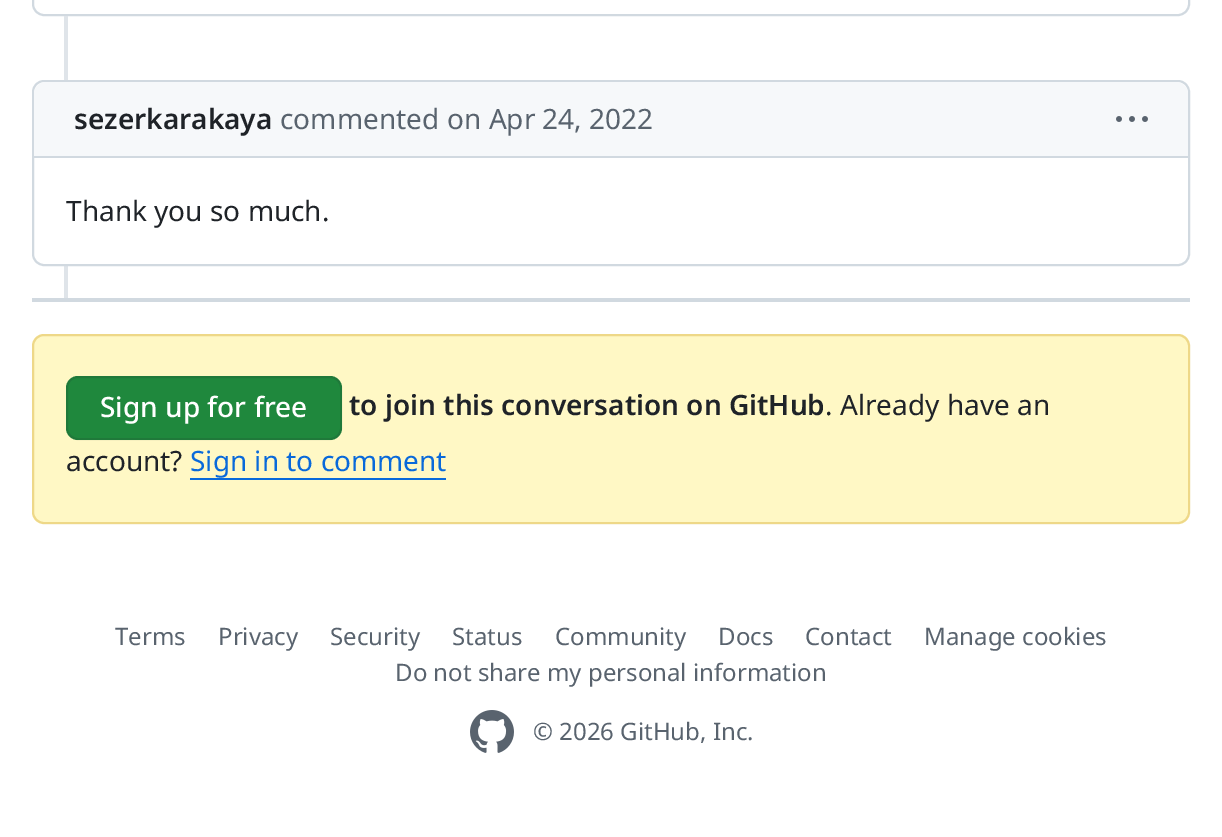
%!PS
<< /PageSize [1222 837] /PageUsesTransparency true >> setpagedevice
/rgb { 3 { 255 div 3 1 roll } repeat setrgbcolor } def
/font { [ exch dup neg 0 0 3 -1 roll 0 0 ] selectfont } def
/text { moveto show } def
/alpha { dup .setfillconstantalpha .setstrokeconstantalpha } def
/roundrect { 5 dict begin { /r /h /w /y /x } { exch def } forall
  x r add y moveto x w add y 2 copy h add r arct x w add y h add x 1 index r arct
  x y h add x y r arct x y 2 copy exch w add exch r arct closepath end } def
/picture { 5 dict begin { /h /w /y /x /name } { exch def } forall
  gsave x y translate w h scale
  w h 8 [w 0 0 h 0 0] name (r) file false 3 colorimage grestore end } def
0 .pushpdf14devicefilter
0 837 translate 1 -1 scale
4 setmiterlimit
255 255 255 rgb
0 0 1222 837 rectfill
209 217 224 rgb
2 setlinewidth
33 -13 1156 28 11 roundrect stroke
223 228 233 rgb
64 16 4 282 rectfill
255 255 255 rgb
33 81 1156 184 11 roundrect gsave fill grestore
209 217 224 rgb
stroke
246 248 250 rgb
46 82 moveto 1130 0 rlineto 6.5 0 12 5.5 12 12 rcurveto 0 64 rlineto -1154 0 rlineto 0 -64 rlineto 0 -6.5 5.5 -12 12 -12 rcurveto closepath fill
209 217 224 rgb
34 156 1154 2 rectfill
(img_01.rgb) 1116 116 32 6 picture
32 298 1158 4 rectfill
255 248 197 rgb
32 334 1158 190 12 roundrect fill
0.4 alpha
212 167 44 rgb
33 335 1156 188 11 roundrect stroke
1 alpha
31 136 61 rgb
66 376 276 64 12 roundrect fill
0.15 alpha
31 35 40 rgb
67 377 274 62 11 roundrect stroke
1 alpha
9 105 218 rgb
190 478 256 2 rectfill
(img_02.rgb) 470 710 44 43 picture
/NotoSans-SemiBold 28 font
31 35 40 rgb
(sezerkarakaya) 74 129 text
/NotoSans-Regular 28 font
89 99 110 rgb
(commented) 280 129 text
(on Apr 24, 2022) 447 129 text
31 35 40 rgb
(Thank you so much.) 66 221 text
/NotoSans-Medium 28 font
255 255 255 rgb
(Sign up for free) 100 417 text
/NotoSans-SemiBold 28 font
31 35 40 rgb
(to join this conversation on GitHub) 349 415 text
/NotoSans-Regular 28 font
(. Already have an) 825 415 text
(account?) 66 471 text
9 105 218 rgb
(Sign in to comment) 190 471 text
/NotoSans-Regular 24 font
89 99 110 rgb
(Terms) 115 645 text
(Privacy) 218 645 text
(Security) 330 645 text
(Status) 452 645 text
(Community) 555 645 text
(Docs) 718 645 text
(Contact) 805 645 text
(Manage cookies) 924 645 text
(Do not share my personal information) 395 681 text
(© 2026 GitHub, Inc.) 533 740 text
.poppdf14devicefilter showpage
